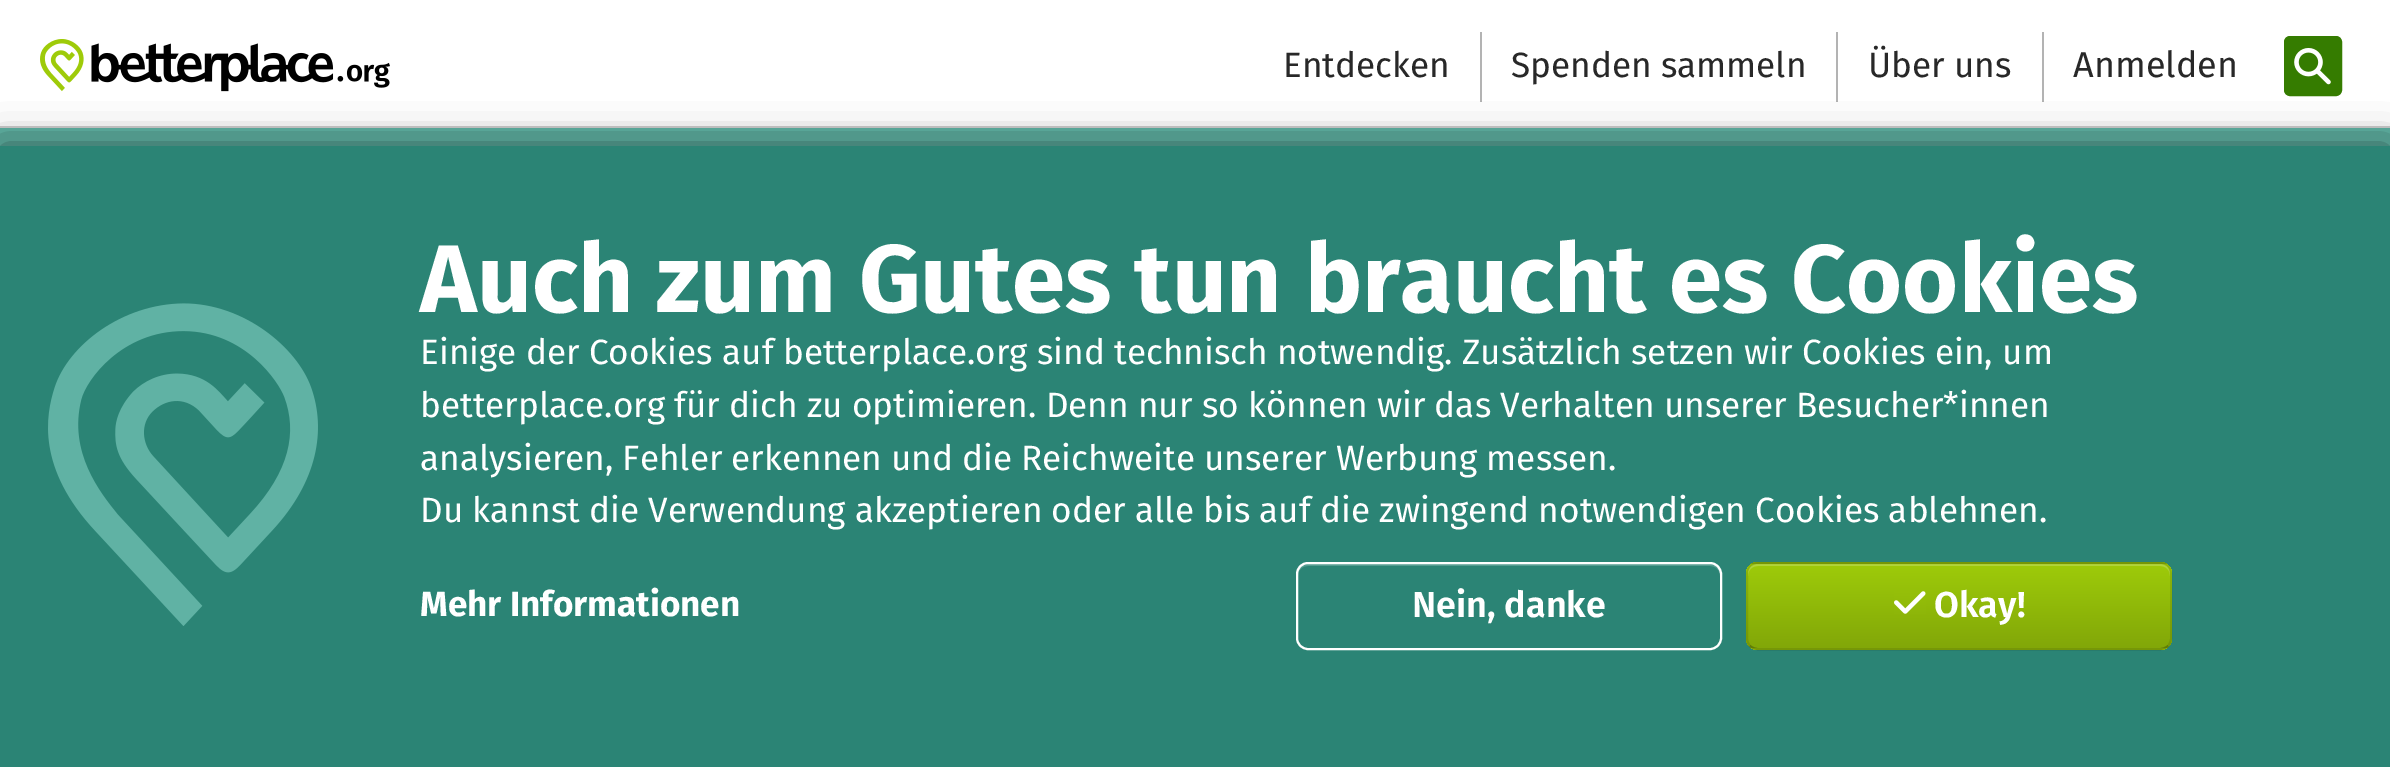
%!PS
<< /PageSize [2390 767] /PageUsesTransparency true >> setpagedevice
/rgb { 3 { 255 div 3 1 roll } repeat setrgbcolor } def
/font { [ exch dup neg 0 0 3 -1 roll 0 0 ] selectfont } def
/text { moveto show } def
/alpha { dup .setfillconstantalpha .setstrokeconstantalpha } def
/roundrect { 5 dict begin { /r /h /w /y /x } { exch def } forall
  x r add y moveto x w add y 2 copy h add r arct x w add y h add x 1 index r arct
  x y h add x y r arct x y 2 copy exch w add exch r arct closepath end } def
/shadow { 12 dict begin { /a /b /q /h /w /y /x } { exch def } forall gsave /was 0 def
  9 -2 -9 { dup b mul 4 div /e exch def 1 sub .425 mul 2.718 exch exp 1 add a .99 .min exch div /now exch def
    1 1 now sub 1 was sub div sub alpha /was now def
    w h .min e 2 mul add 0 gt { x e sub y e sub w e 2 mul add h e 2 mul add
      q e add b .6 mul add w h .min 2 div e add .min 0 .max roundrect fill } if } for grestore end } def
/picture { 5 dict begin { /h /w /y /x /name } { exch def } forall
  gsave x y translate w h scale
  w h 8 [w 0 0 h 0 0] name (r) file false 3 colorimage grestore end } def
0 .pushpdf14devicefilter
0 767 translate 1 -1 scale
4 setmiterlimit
255 255 255 rgb
0 0 2390 767 rectfill
204 204 204 rgb
0 126 2390 2 rectfill
(img_01.rgb) 40 39 350 53 picture
179 179 179 rgb
1480 32 2 70 rectfill
1836 32 2 70 rectfill
2042 32 2 70 rectfill
53 124 0 rgb
2285 37 56 58 5 roundrect gsave fill grestore
2 setlinewidth
stroke
(img_02.rgb) 2294 48 37 37 picture
96 178 164 rgb
0 128 2390 18 rectfill
0 0 0 rgb
0 146 2390 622 0 20 0.5 shadow
43 132 117 rgb
0 146 2390 621 rectfill
(img_03.rgb) 48 303 270 323 picture
85 157 145 rgb
1308 566 moveto 402 0 rlineto 6 0 10 4 10 10 rcurveto 0 -2 rlineto 0 -6 -4 -10 -10 -10 rcurveto -402 0 rlineto -6 0 -10 4 -10 10 rcurveto 0 2 rlineto 0 -6 4 -10 10 -10 rcurveto closepath fill
255 255 255 rgb
1297 563 424 86 11 roundrect stroke
gsave
1746 562 426 88 12 roundrect clip newpath
gsave 1746 562 moveto 426 0 rlineto 0 2 rlineto -426 0 rlineto closepath clip newpath
<< /ShadingType 2 /ColorSpace /DeviceRGB /Coords [1959 480 1959 564] /Extend [true true] /Function << /FunctionType 2 /Domain [0 1] /C0 [0.62 0.796 0.039] /C1 [0.51 0.655 0.031] /N 1 >> >> shfill grestore
gsave 1746 564 moveto 426 0 rlineto 0 84 rlineto -426 0 rlineto closepath clip newpath
<< /ShadingType 2 /ColorSpace /DeviceRGB /Coords [1959 564 1959 648] /Extend [true true] /Function << /FunctionType 2 /Domain [0 1] /C0 [0.62 0.796 0.039] /C1 [0.51 0.655 0.031] /N 1 >> >> shfill grestore
gsave 1746 648 moveto 426 0 rlineto 0 2 rlineto -426 0 rlineto closepath clip newpath
<< /ShadingType 2 /ColorSpace /DeviceRGB /Coords [1959 648 1959 732] /Extend [true true] /Function << /FunctionType 2 /Domain [0 1] /C0 [0.62 0.796 0.039] /C1 [0.51 0.655 0.031] /N 1 >> >> shfill grestore
grestore
0.2 alpha
1758 566 moveto 402 0 rlineto 6 0 10 4 10 10 rcurveto 0 -2 rlineto 0 -6 -4 -10 -10 -10 rcurveto -402 0 rlineto -6 0 -10 4 -10 10 rcurveto 0 2 rlineto 0 -6 4 -10 10 -10 rcurveto closepath fill
0.25 alpha
0 0 0 rgb
2168 646 moveto -2.5 2 -5 3 -8 3 rcurveto -402 0 rlineto -3 0 -5.5 -1 -8 -3 rcurveto stroke
0.1 alpha
1750 646 moveto -2 -2.5 -3 -5 -3 -8 rcurveto 0 -64 rlineto 0 -3 1 -5.5 3 -8 rcurveto 2.5 -2 5 -3 8 -3 rcurveto 402 0 rlineto 3 0 5.5 1 8 3 rcurveto 2 2.5 3 5 3 8 rcurveto 0 64 rlineto 0 3 -1 5.5 -3 8 rcurveto stroke
1 alpha
(img_04.rgb) 1894 591 32 23 picture
/FiraSans-Regular 35.1 font
40 40 40 rgb
(Entdecken) 1283 77 text
(Spenden sammeln) 1511 77 text
(Über uns) 1868 77 text
/FiraSans-Regular 36 font
(Anmelden) 2073 77 text
/FiraSans-Bold 96 font
255 255 255 rgb
(Auch zum Gutes tun braucht es Cookies) 420 312 text
/FiraSans-Regular 35.1 font
(Einige der Cookies auf betterplace.org sind technisch notwendig. Zusätzlich setzen wir Cookies ein, um) 420 364 text
(betterplace.org für dich zu optimieren. Denn nur so können wir das Verhalten unserer Besucher*innen) 420 417 text
420 470 moveto -0.25 0 32 (analysieren, Fehler erkennen und die Reichweite unserer Werbung messen.) widthshow
(Du kannst die Verwendung akzeptieren oder alle bis auf die zwingend notwendigen Cookies ablehnen.) 420 522 text
/FiraSans-Bold 35.1 font
(Mehr Informationen) 420 616 text
/FiraSans-SemiBold 36 font
(Nein, danke) 1412 617 text
(Okay!) 1934 617 text
.poppdf14devicefilter showpage
